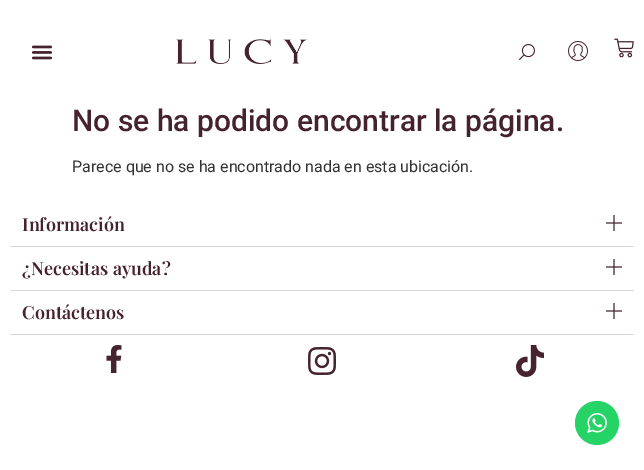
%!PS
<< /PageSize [644 470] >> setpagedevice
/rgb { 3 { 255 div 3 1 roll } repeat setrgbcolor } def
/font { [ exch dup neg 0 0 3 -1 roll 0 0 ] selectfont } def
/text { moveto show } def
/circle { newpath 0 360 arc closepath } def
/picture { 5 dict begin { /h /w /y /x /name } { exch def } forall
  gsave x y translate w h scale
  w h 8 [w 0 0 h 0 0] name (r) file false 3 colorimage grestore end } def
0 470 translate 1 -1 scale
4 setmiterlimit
255 255 255 rgb
0 0 644 470 rectfill
(img_01.rgb) 31 45 22 15 picture
(img_02.rgb) 176 39 131 25 picture
(img_03.rgb) 519 44 16 16 picture
(img_04.rgb) 568 41 20 20 picture
(img_05.rgb) 614 38 20 20 picture
213 216 220 rgb
10 246 624 1 rectfill
(img_06.rgb) 606 215 16 16 picture
10 290 624 1 rectfill
(img_06.rgb) 606 259 16 16 picture
10 334 624 1 rectfill
(img_06.rgb) 606 303 16 16 picture
(img_07.rgb) 106 345 16 28 picture
(img_08.rgb) 308 347 28 28 picture
(img_09.rgb) 516 345 28 32 picture
37 211 102 rgb
597 423 22 circle fill
(img_10.rgb) 587 413 20 20 picture
/Roboto-Medium 30 font
69 34 46 rgb
(No se ha podido encontrar la página.) 72 131 text
/Roboto-Regular 16 font
51 51 51 rgb
(Parece que no se ha encontrado nada en esta ubicación.) 72 172 text
/PlayfairDisplay-SemiBold 18 font
69 34 46 rgb
(Información) 22 231 text
(¿Necesitas ayuda?) 22 275 text
(Contáctenos) 22 319 text
showpage
